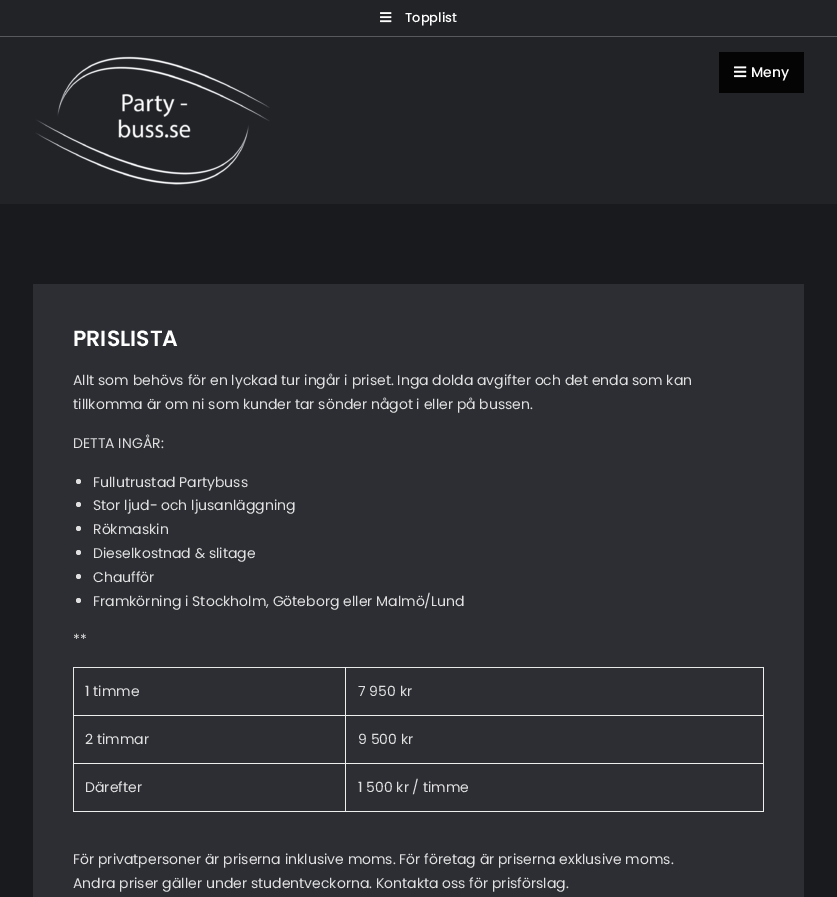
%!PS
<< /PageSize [837 897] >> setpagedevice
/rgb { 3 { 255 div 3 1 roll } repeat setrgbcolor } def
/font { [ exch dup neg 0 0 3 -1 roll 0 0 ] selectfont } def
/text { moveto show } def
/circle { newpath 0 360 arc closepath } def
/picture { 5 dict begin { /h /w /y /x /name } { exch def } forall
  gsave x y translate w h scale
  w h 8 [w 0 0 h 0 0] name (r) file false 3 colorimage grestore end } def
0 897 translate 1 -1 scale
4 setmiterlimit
25 26 30 rgb
0 0 837 897 rectfill
33 35 39 rgb
0 0 837 204 rectfill
88 89 92 rgb
0 36 837 1 rectfill
(img_01.rgb) 380 12 12 11 picture
(img_02.rgb) 35 56 235 129 picture
4 4 4 rgb
719 52 85 41 rectfill
(img_03.rgb) 734 66 13 12 picture
44 46 51 rgb
33 284 771 613 rectfill
224 224 224 rgb
78.5 481.5 2.5 circle fill
78.5 504.5 2.5 circle fill
78.5 528.5 2.5 circle fill
78.5 552.5 2.5 circle fill
78.5 576.5 2.5 circle fill
78.5 600.5 2.5 circle fill
231 231 231 rgb
73 667 691 1 rectfill
73 667 1 145 rectfill
238 238 238 rgb
763 667 1 145 rectfill
345 811 419 1 rectfill
345 763 1 49 rectfill
345 763 419 1 rectfill
345 715 1 49 rectfill
345 715 419 1 rectfill
345 667 1 49 rectfill
73 715 273 1 rectfill
73 763 273 1 rectfill
73 811 273 1 rectfill
/Poppins-Medium 13 font
255 255 255 rgb
(Topplist) 405 22 text
/Poppins-Medium 14 font
(Meny) 751 77 text
/Poppins-SemiBold 22 font
(PRISLISTA) 73 346 text
/Poppins-Regular 14 font
224 224 224 rgb
(Allt som behövs för en lyckad tur ingår i priset. Inga dolda avgifter och det enda som kan) 73 385 text
(tillkomma är om ni som kunder tar sönder något i eller på bussen.) 73 409 text
(DETTA INGÅR:) 73 448 text
(Fullutrustad Partybuss) 93 487 text
(Stor ljud- och ljusanläggning) 93 510 text
(Rökmaskin) 93 534 text
(Dieselkostnad & slitage) 93 558 text
(Chaufför) 93 582 text
(Framkörning i Stockholm, Göteborg eller Malmö/Lund) 93 606 text
(**) 73 644 text
(1 timme) 85 696 text
(7 950 kr) 358 696 text
(2 timmar) 85 744 text
(9 500 kr) 358 744 text
(Därefter) 85 792 text
(1 500 kr / timme) 358 792 text
(För privatpersoner är priserna inklusive moms. För företag är priserna exklusive moms.) 73 864 text
(Andra priser gäller under studentveckorna. Kontakta oss för prisförslag.) 73 888 text
showpage
